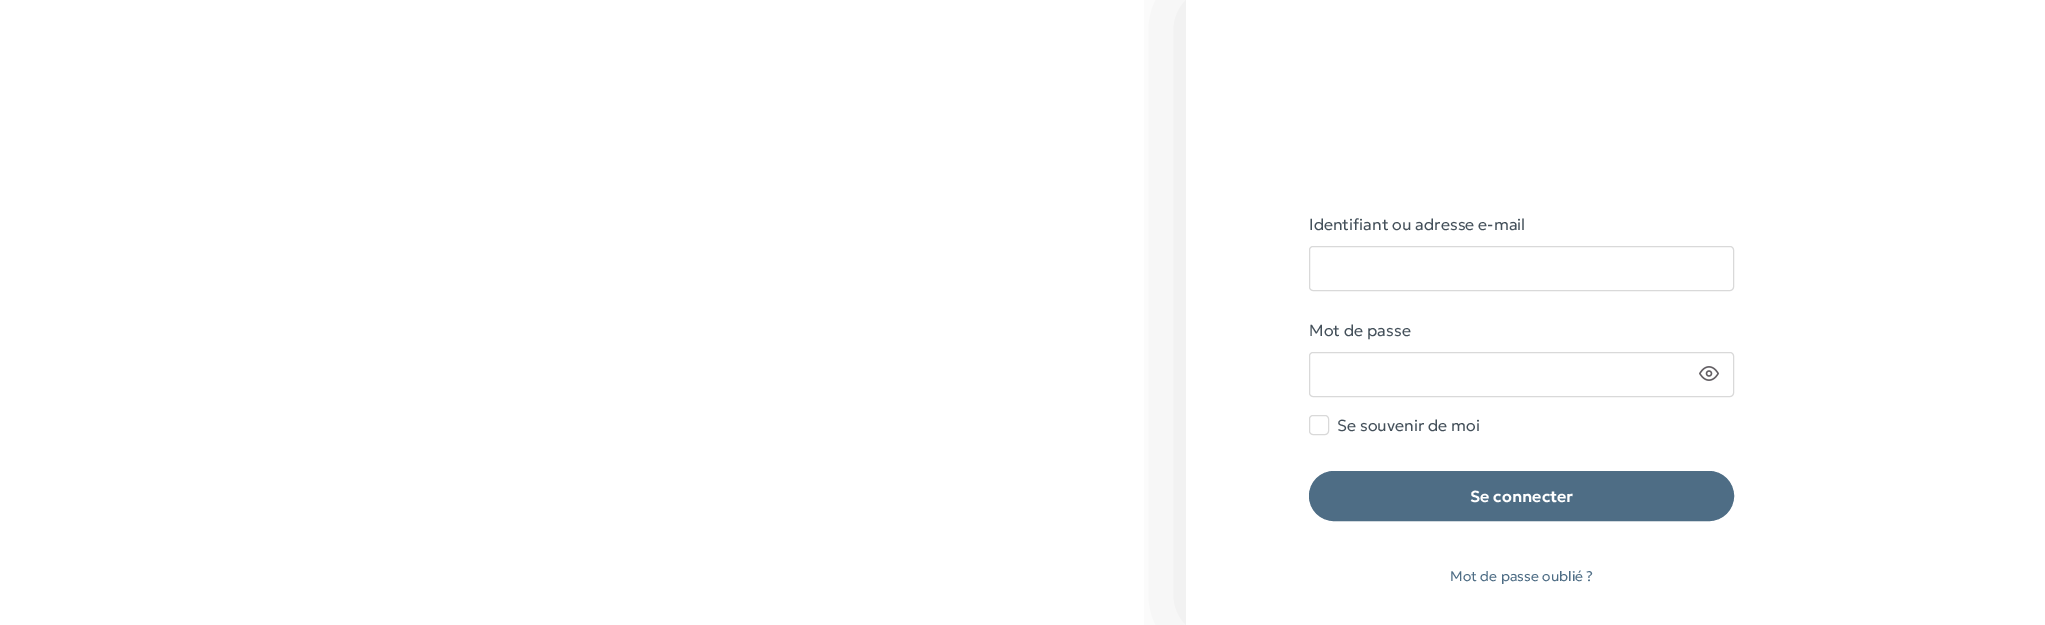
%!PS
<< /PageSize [2045 625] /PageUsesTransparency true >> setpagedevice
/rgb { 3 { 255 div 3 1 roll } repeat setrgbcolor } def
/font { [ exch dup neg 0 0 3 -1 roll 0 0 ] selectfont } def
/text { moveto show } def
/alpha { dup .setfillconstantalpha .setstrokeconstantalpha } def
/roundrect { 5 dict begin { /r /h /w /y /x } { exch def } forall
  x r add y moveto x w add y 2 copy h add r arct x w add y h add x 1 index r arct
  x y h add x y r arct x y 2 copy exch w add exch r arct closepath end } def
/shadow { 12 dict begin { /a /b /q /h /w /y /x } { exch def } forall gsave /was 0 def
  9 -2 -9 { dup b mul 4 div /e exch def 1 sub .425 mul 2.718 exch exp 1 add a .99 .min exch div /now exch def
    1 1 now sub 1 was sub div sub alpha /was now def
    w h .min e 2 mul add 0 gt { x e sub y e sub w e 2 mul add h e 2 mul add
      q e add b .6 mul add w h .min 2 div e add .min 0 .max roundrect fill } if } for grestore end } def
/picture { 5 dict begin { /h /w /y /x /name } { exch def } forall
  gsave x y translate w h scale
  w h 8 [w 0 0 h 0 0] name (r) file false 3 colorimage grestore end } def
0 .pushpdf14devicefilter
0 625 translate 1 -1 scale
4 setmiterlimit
255 255 255 rgb
0 0 2045 625 rectfill
gsave
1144 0 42 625 rectclip
0 0 0 rgb
1186 0 859 625 0 50 0.1 shadow
grestore
217 217 217 rgb
1309.5 246.5 424 44 3.5 roundrect stroke
1309.5 352.5 424 44 3.5 roundrect stroke
(img_01.rgb) 1699 366 20 15 picture
1309.5 415.5 19 19 3.5 roundrect stroke
78 109 133 rgb
1309.5 471.5 424 49 24.5 roundrect gsave fill grestore
stroke
/Geologica-Light 16 font
68 80 90 rgb
(Identifiant ou adresse e-mail) 1309 230 text
(Mot de passe) 1309 336 text
(Se souvenir de moi) 1337 431 text
/Geologica-SemiBold 16 font
255 255 255 rgb
(Se connecter) 1470 502 text
/Geologica-Light 14 font
78 109 133 rgb
(Mot de passe oublié ?) 1450 581 text
.poppdf14devicefilter showpage
